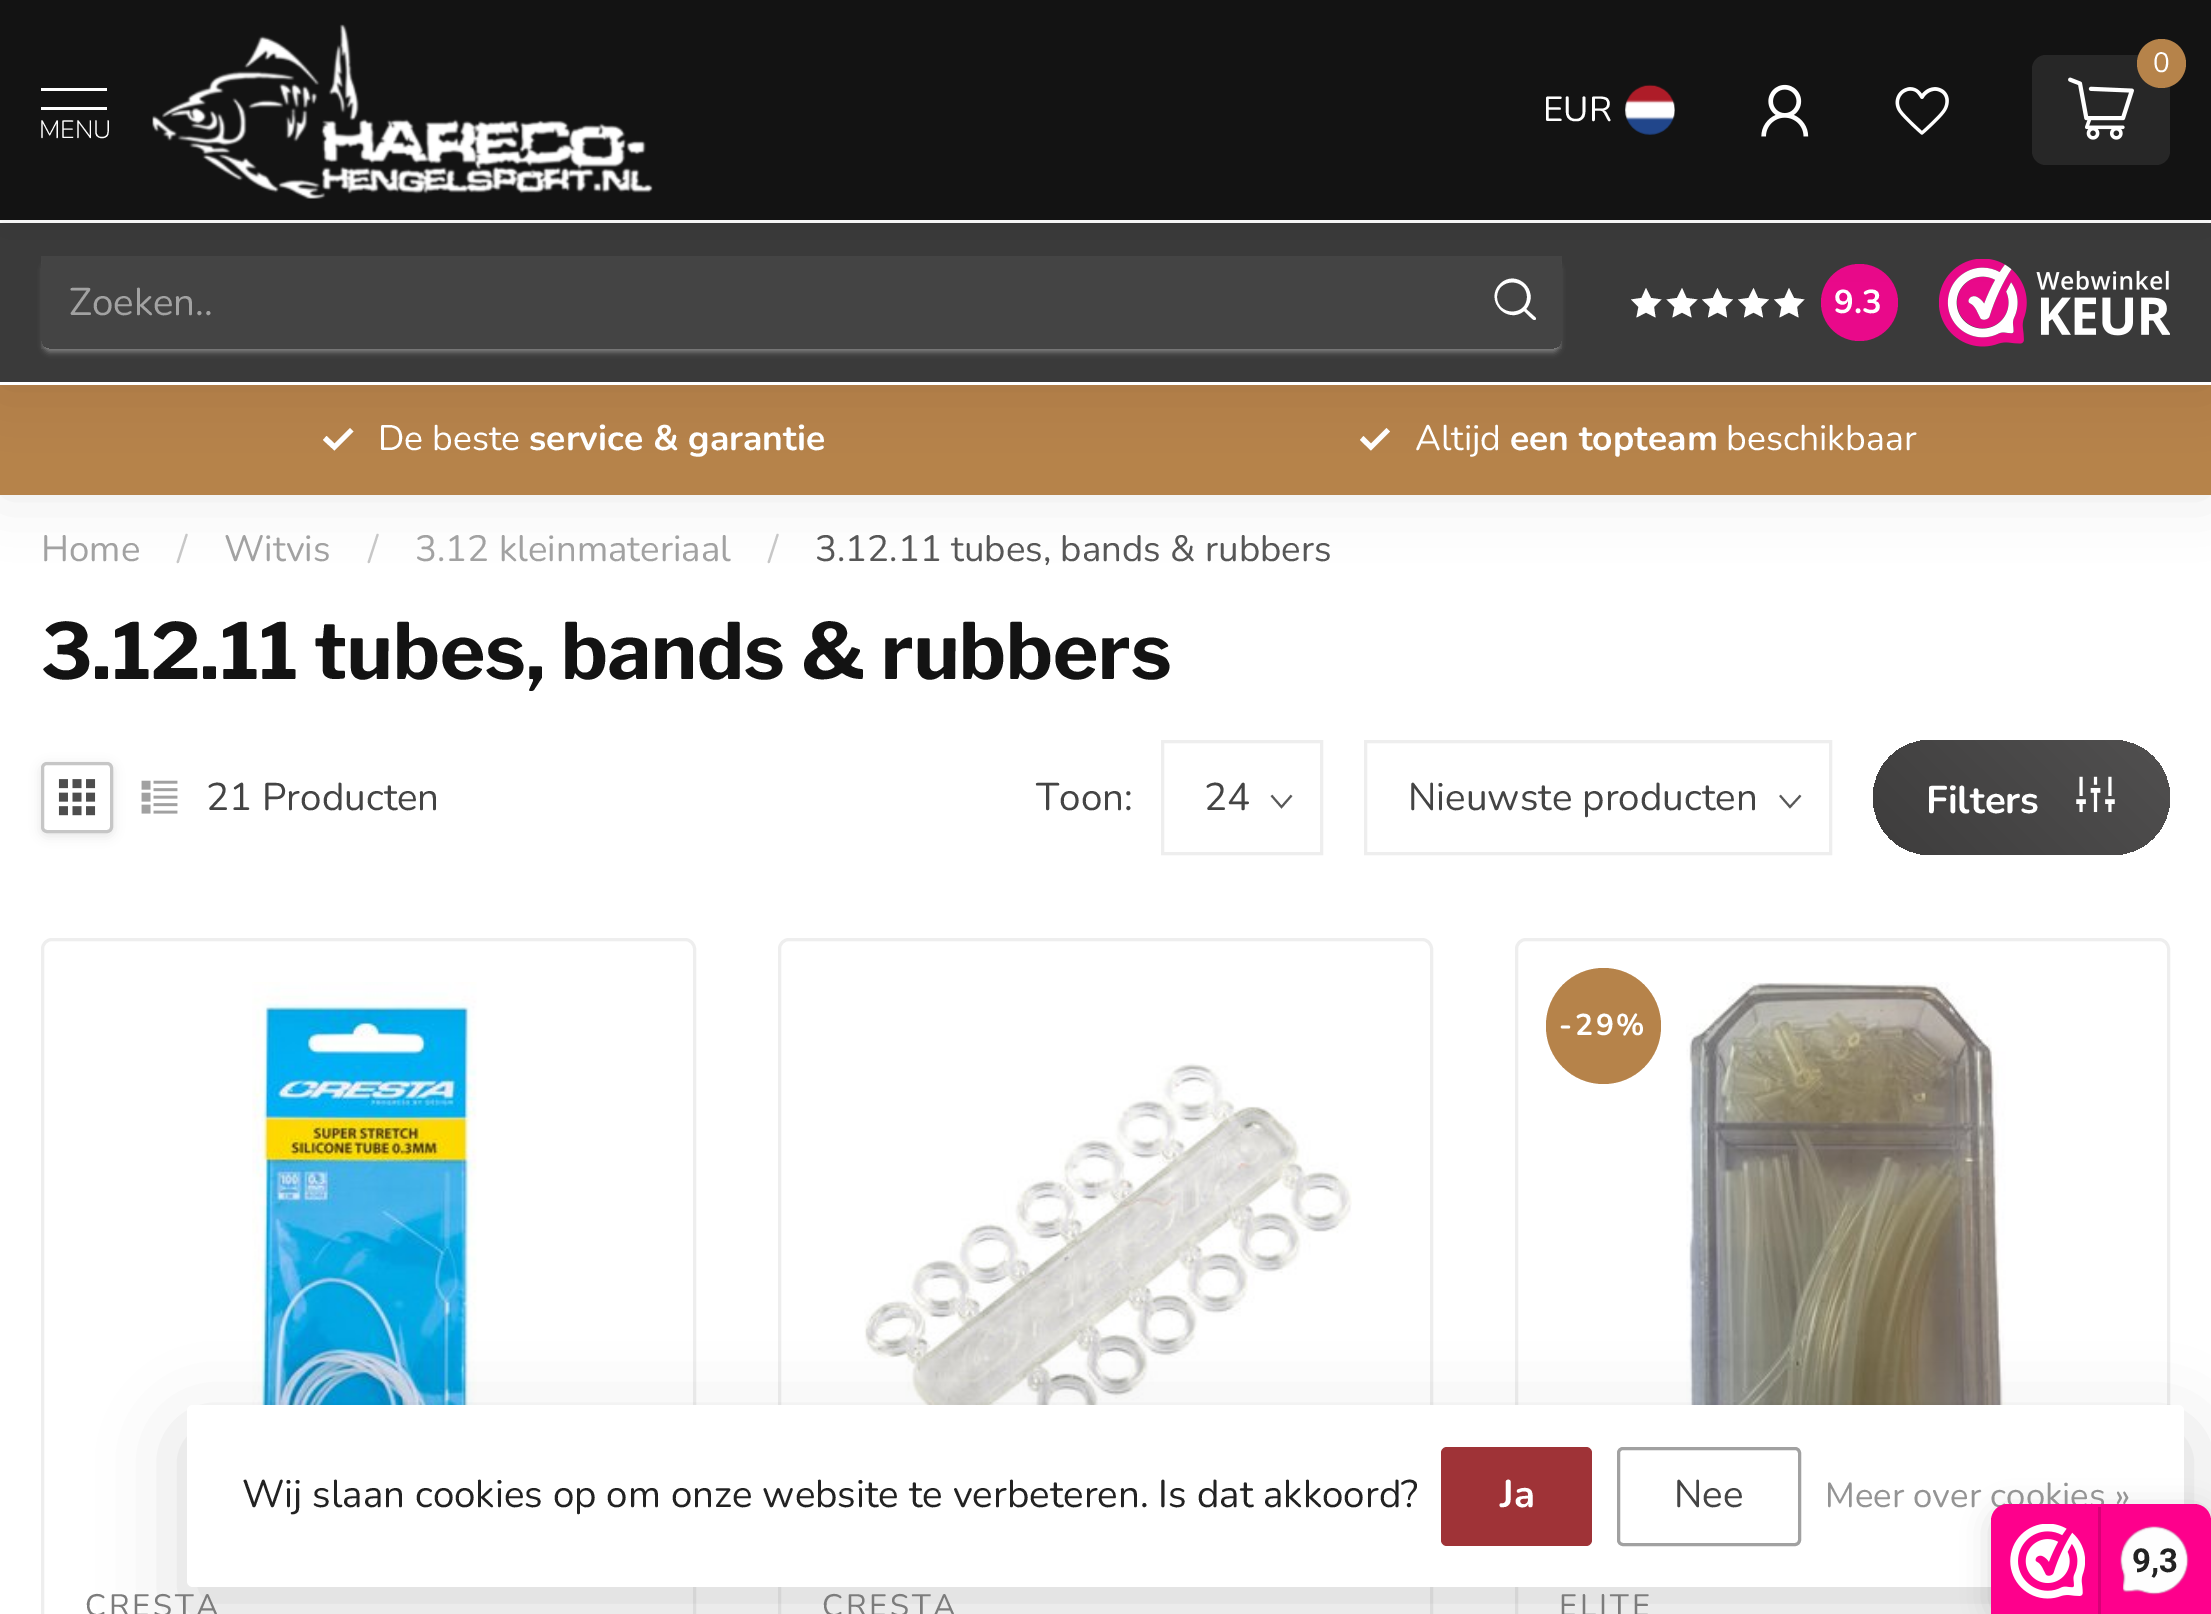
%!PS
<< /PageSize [2211 1614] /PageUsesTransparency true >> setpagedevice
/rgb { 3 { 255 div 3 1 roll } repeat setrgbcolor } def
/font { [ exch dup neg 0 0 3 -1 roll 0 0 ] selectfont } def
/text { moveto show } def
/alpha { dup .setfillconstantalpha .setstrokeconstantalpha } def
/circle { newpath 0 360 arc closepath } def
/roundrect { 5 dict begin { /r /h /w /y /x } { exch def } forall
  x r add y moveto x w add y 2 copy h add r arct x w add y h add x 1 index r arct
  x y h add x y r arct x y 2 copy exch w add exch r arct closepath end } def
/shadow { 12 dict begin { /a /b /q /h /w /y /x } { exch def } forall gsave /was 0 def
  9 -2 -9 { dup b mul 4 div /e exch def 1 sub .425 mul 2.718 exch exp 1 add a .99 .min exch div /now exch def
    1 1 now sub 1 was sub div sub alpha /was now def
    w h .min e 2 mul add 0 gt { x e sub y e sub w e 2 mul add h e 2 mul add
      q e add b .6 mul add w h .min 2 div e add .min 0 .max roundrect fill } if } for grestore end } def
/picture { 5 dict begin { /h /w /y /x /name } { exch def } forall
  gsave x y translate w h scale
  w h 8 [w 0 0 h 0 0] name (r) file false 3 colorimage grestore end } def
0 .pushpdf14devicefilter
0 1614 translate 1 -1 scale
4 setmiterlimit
255 255 255 rgb
0 0 2211 1614 rectfill
0 0 0 rgb
0 385 2211 110 0 30 0.08 shadow
182 131 74 rgb
0 385 2211 110 rectfill
255 255 255 rgb
334.5 450.5 moveto -11.5 -10.5 rlineto 3.5 -4 rlineto 8 7.5 rlineto 15.5 -15.5 rlineto 3.5 3.5 rlineto closepath fill
1371 450.5 moveto -11 -10.5 rlineto 3.5 -4 rlineto 7.5 7.5 rlineto 15.5 -15.5 rlineto 3.5 3.5 rlineto closepath fill
0 0 0 rgb
0 220 2211 165 0 30 0.08 shadow
58 58 58 rgb
0 223 2211 159 rectfill
255 255 255 rgb
0 220 2211 3 rectfill
gsave
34 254 moveto 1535 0 rlineto 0 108 rlineto -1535 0 rlineto closepath 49 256 moveto 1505 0 rlineto 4.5 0 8 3.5 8 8 rcurveto 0 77 rlineto 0 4.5 -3.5 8 -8 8 rcurveto -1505 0 rlineto -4.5 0 -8 -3.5 -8 -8 rcurveto 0 -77 rlineto 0 -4.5 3.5 -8 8 -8 rcurveto closepath eoclip newpath
155 155 155 rgb
44 264 1515 88 6 3 0.75 shadow
grestore
0.05 alpha
41 256 1521 93 rectfill
1 alpha
1536 318 moveto -10 -9 rlineto 15 -18 -10 -41 -26 -25 rcurveto -16 16 7 41 24 27 rcurveto 6 6 rlineto 1 0 4 5 6 2 rcurveto closepath 1497 297 moveto 0 -19 30 -20 30 0 rcurveto 0 20 -30 19 -30 0 rcurveto closepath fill
1646 288 moveto 5 10 rlineto 10.5 1.5 rlineto -7.5 7.5 rlineto 1.5 10.5 rlineto -9.5 -5 rlineto -9.5 5 rlineto 2 -10.5 rlineto -7.5 -7.5 rlineto 10.5 -1.5 rlineto closepath fill
1682 288 moveto 4.5 10 rlineto 11 1.5 rlineto -8 7.5 rlineto 2 10.5 rlineto -9.5 -5 rlineto -9.5 5 rlineto 2 -10.5 rlineto -8 -7.5 rlineto 10.5 -1.5 rlineto closepath fill
1717.5 288 moveto 5 10 rlineto 10.5 1.5 rlineto -7.5 7.5 rlineto 1.5 10.5 rlineto -9.5 -5 rlineto -9.5 5 rlineto 2 -10.5 rlineto -8 -7.5 rlineto 11 -1.5 rlineto closepath fill
1753.5 288 moveto 4.5 10 rlineto 11 1.5 rlineto -8 7.5 rlineto 2 10.5 rlineto -9.5 -5 rlineto -9.5 5 rlineto 2 -10.5 rlineto -8 -7.5 rlineto 10.5 -1.5 rlineto closepath fill
1789 288 moveto 5 10 rlineto 10.5 1.5 rlineto -7.5 7.5 rlineto 1.5 10.5 rlineto -9.5 -5 rlineto -9.5 5 rlineto 2 -10.5 rlineto -7.5 -7.5 rlineto 10.5 -1.5 rlineto closepath fill
233 9 138 rgb
1859.5 302.5 38.5 circle fill
(img_06.rgb) 1939 259 231 88 picture
0 0 0 rgb
0 0 2211 220 0 27.5 0.07 shadow
19 19 19 rgb
0 0 2211 220 rectfill
39 39 39 rgb
2032 55 138 110 14 roundrect fill
182 131 74 rgb
2161.5 63.5 24.5 circle fill
(img_01.rgb) 2068 77 66 63 picture
(img_02.rgb) 1625 84 50 51 picture
(img_03.rgb) 1761 84 48 53 picture
(img_04.rgb) 1895 87 54 48 picture
255 255 255 rgb
41 88 66 3 rectfill
41 107 66 3 rectfill
(img_05.rgb) 152 24 501 175 picture
0 382 2211 3 rectfill
gsave
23 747 moveto 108 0 rlineto 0 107 rlineto -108 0 rlineto closepath 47 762 moveto 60 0 rlineto 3.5 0 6 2.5 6 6 rcurveto 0 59 rlineto 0 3.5 -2.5 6 -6 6 rcurveto -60 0 rlineto -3.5 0 -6 -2.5 -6 -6 rcurveto 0 -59 rlineto 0 -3.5 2.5 -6 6 -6 rcurveto closepath eoclip newpath
0 0 0 rgb
41 765 72 71 6 5.5 0.1 shadow
grestore
198 198 198 rgb
3 setlinewidth
42.5 763.5 69 68 4.5 roundrect stroke
(img_07.rgb) 58 779 38 37 picture
(img_08.rgb) 141 780 37 34 picture
89 89 89 rgb
2 setlinewidth
1291.5 795.5 moveto -10 11.5 rlineto -10 -11.5 rlineto stroke
238 238 238 rgb
3 setlinewidth
1162.5 741.5 159 112 rectstroke
89 89 89 rgb
2 setlinewidth
1800.5 795.5 moveto -10.5 11.5 rlineto -10 -11.5 rlineto stroke
238 238 238 rgb
3 setlinewidth
1365.5 741.5 465 112 rectstroke
gsave 1873 740 297 115 57.5 roundrect clip newpath
<< /ShadingType 2 /ColorSpace /DeviceRGB /Coords [1918 901 2124 694] /Extend [true true] /Function << /FunctionType 2 /Domain [0 1] /C0 [0.243 0.239 0.239] /C1 [0.318 0.314 0.314] /N 1 >> >> shfill grestore
(img_09.rgb) 2076 776 39 37 picture
42.5 939.5 652 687 9.5 roundrect stroke
(img_10.rgb) 252 982 225 423 picture
779.5 939.5 652 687 9.5 roundrect stroke
(img_11.rgb) 864 1063 488 342 picture
1516.5 939.5 652 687 9.5 roundrect stroke
182 131 74 rgb
1546 968 115 116 57.5 roundrect fill
(img_12.rgb) 1686 982 320 423 picture
0 0 0 rgb
187 1433 1997 181 6 41 0.15 shadow
255 255 255 rgb
187 1405 1997 182 6 roundrect fill
159 51 55 rgb
1441 1447 151 99 6 roundrect fill
161 161 161 rgb
1618.5 1448.5 181 96 4.5 roundrect stroke
0 0 0 rgb
1991 1510 220 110 17 14 0.15 shadow
/Nunito-Regular 28 font
255 255 255 rgb
(0) 2153 72 text
/Nunito-Regular 34.75 font
(EUR) 1543 121 text
/Nunito-Light 25 font
(MENU) 39 138 text
/Nunito-Regular 38.5 font
162 162 162 rgb
(Zoeken..) 69 315 text
/Nunito-Bold 33 font
255 255 255 rgb
(9.3) 1834 313 text
/Nunito-Regular 35.5 font
(De beste) 378 450 text
/Nunito-Bold 35.5 font
(service & garantie) 529 450 text
/Nunito-Regular 35.5 font
(Altijd) 1415 450 text
/Nunito-Bold 35.5 font
(een topteam) 1510 450 text
/Nunito-Regular 35.5 font
(beschikbaar) 1726 450 text
/Nunito-Regular 36.6 font
162 162 162 rgb
(Home) 41 561 text
199 199 199 rgb
(/) 177 561 text
162 162 162 rgb
(Witvis) 224 561 text
199 199 199 rgb
(/) 368 561 text
162 162 162 rgb
(3.12 kleinmateriaal) 415 561 text
199 199 199 rgb
(/) 768 561 text
87 87 87 rgb
(3.12.11 tubes, bands & rubbers) 815 561 text
/LibreFranklin-Bold 77 font
19 19 19 rgb
(3.12.11 tubes, bands & rubbers) 41 679 text
/Nunito-Regular 38.5 font
68 68 68 rgb
(21 Producten) 206 810 text
(Toon:) 1036 810 text
(24) 1204 810 text
(Nieuwste producten) 1408 810 text
/Nunito-Bold 38.5 font
255 255 255 rgb
(Filters) 1926 813 text
/Nunito-Regular 31 font
124 124 124 rgb
85 1616 moveto 2.75 0 (CRESTA) ashow
822 1616 moveto 2.75 0 (CRESTA) ashow
/Nunito-Bold 30 font
255 255 255 rgb
1559 1035 moveto 2.75 0 (-29%) ashow
/Nunito-Regular 31 font
124 124 124 rgb
1559 1616 moveto 2.75 0 (ELITE) ashow
/Nunito-Regular 38.5 font
34 34 34 rgb
(Wij slaan cookies op om onze website te verbeteren. Is dat akkoord?) 242 1507 text
/Nunito-Bold 38.5 font
255 255 255 rgb
(Ja) 1500 1507 text
/Nunito-Regular 38.5 font
68 68 68 rgb
(Nee) 1674 1507 text
/Nunito-Regular 34.75 font
148 148 148 rgb
(Meer over cookies ») 1825 1507 text
254 0 140 rgb
2008 1504 moveto 186 0 rlineto 9.5 0 17 7.5 17 17 rcurveto 0 93 rlineto -220 0 rlineto 0 -93 rlineto 0 -9.5 7.5 -17 17 -17 rcurveto closepath fill
(img_13.rgb) 2010 1524 75 75 picture
216 0 119 rgb
2098 1507 3 107 rectfill
(img_14.rgb) 2120 1526 69 69 picture
/Roboto-Bold 33 font
34 34 34 rgb
(9,3) 2132 1572 text
.poppdf14devicefilter showpage
